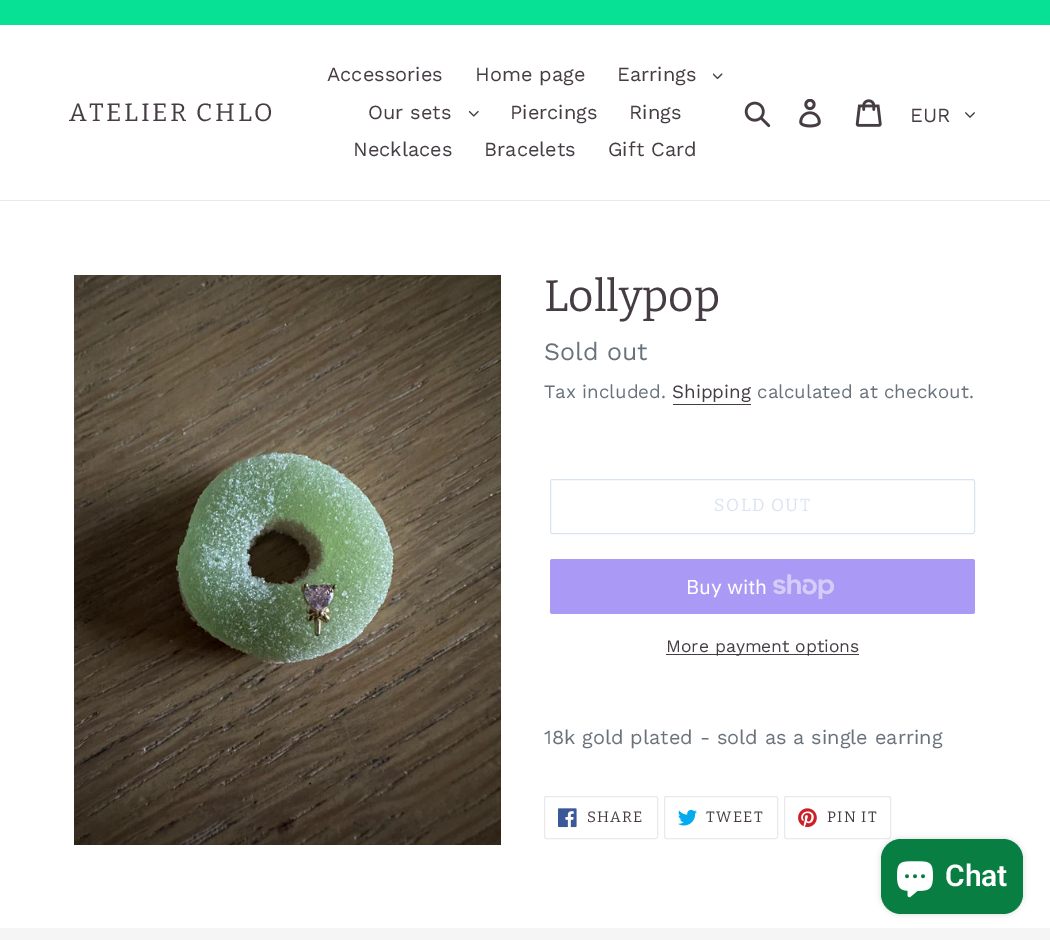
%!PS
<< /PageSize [1050 940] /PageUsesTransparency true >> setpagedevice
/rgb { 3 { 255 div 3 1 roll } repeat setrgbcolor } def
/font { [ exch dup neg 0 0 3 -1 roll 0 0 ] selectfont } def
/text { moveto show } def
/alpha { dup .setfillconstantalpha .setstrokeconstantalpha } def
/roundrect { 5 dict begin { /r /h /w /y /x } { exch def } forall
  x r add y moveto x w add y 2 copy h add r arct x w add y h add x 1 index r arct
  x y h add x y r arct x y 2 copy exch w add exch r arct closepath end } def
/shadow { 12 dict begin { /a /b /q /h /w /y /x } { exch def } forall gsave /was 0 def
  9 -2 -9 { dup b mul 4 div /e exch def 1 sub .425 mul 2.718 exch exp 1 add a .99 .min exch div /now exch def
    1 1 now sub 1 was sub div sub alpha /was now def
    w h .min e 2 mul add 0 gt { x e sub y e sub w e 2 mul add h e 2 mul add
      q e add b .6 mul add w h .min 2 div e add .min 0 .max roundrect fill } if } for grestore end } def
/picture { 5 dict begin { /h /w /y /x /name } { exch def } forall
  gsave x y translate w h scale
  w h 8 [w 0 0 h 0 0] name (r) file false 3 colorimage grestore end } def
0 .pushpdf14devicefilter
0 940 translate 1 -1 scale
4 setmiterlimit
255 255 255 rgb
0 0 1050 940 rectfill
6 225 150 rgb
0 0 1050 25 rectfill
232 233 235 rgb
0 200 1050 1 rectfill
(img_01.rgb) 713 73 10 7 picture
(img_02.rgb) 469 110 10 7 picture
(img_03.rgb) 744 101 27 27 picture
(img_04.rgb) 799 99 22 29 picture
(img_05.rgb) 855 99 27 28 picture
(img_06.rgb) 965 112 10 6 picture
(img_07.rgb) 74 275 427 570 picture
70 61 68 rgb
673 404 78 1 rectfill
217 227 243 rgb
550.5 479.5 424 54 2 roundrect stroke
170 153 245 rgb
550 559 425 55 2.5 roundrect fill
(img_08.rgb) 773 574 62 25 picture
70 61 68 rgb
666 654 193 1 rectfill
232 233 235 rgb
544.5 796.5 113 42 2 roundrect stroke
(img_09.rgb) 558 808 19 20 picture
664.5 796.5 113 42 2 roundrect stroke
(img_10.rgb) 678 809 19 17 picture
784.5 796.5 106 42 2 roundrect stroke
(img_11.rgb) 798 808 19 20 picture
245 245 245 rgb
0 928 1050 12 rectfill
0 0 0 rgb
881 839 142 75 20 3 0.15 shadow
8 126 66 rgb
881 839 142 75 20 roundrect fill
(img_12.rgb) 897 861 36 37 picture
/Bitter-Regular 25 font
70 61 68 rgb
69 121 moveto 2.5 0 (ATELIER CHLO) ashow
/WorkSans-Regular 20 font
(Accessories) 327 81 text
(Home page) 475 81 text
(Earrings) 617 81 text
(Our sets) 368 119 text
(Piercings) 510 119 text
(Rings) 629 119 text
(Necklaces) 353 156 text
(Bracelets) 484 156 text
(Gift Card) 608 156 text
(EUR) 910 122 text
/Bitter-Regular 44 font
(Lollypop) 544 311 text
/WorkSans-Regular 25 font
105 114 123 rgb
(Sold out) 544 360 text
/WorkSans-Regular 18.75 font
(Tax included.) 544 398 text
70 61 68 rgb
(Shipping) 672 398 text
105 114 123 rgb
(calculated at checkout.) 757 398 text
/Bitter-Regular 17.5 font
217 227 243 rgb
714 511 moveto 1.5 0 (SOLD OUT) ashow
/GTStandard-Regular 20 font
255 255 255 rgb
(Buy with) 686 594 text
/WorkSans-Regular 17.5 font
70 61 68 rgb
(More payment options) 666 652 text
/WorkSans-Regular 20 font
105 114 123 rgb
(18k gold plated - sold as a single earring) 544 744 text
/Bitter-Regular 15 font
70 61 68 rgb
587 822 moveto 1.25 0 (SHARE) ashow
706 822 moveto 1.25 0 (TWEET) ashow
827 822 moveto 1.25 0 (PIN IT) ashow
/Roboto-SemiBold 30 font
255 255 255 rgb
(Chat) 945 886 text
.poppdf14devicefilter showpage
